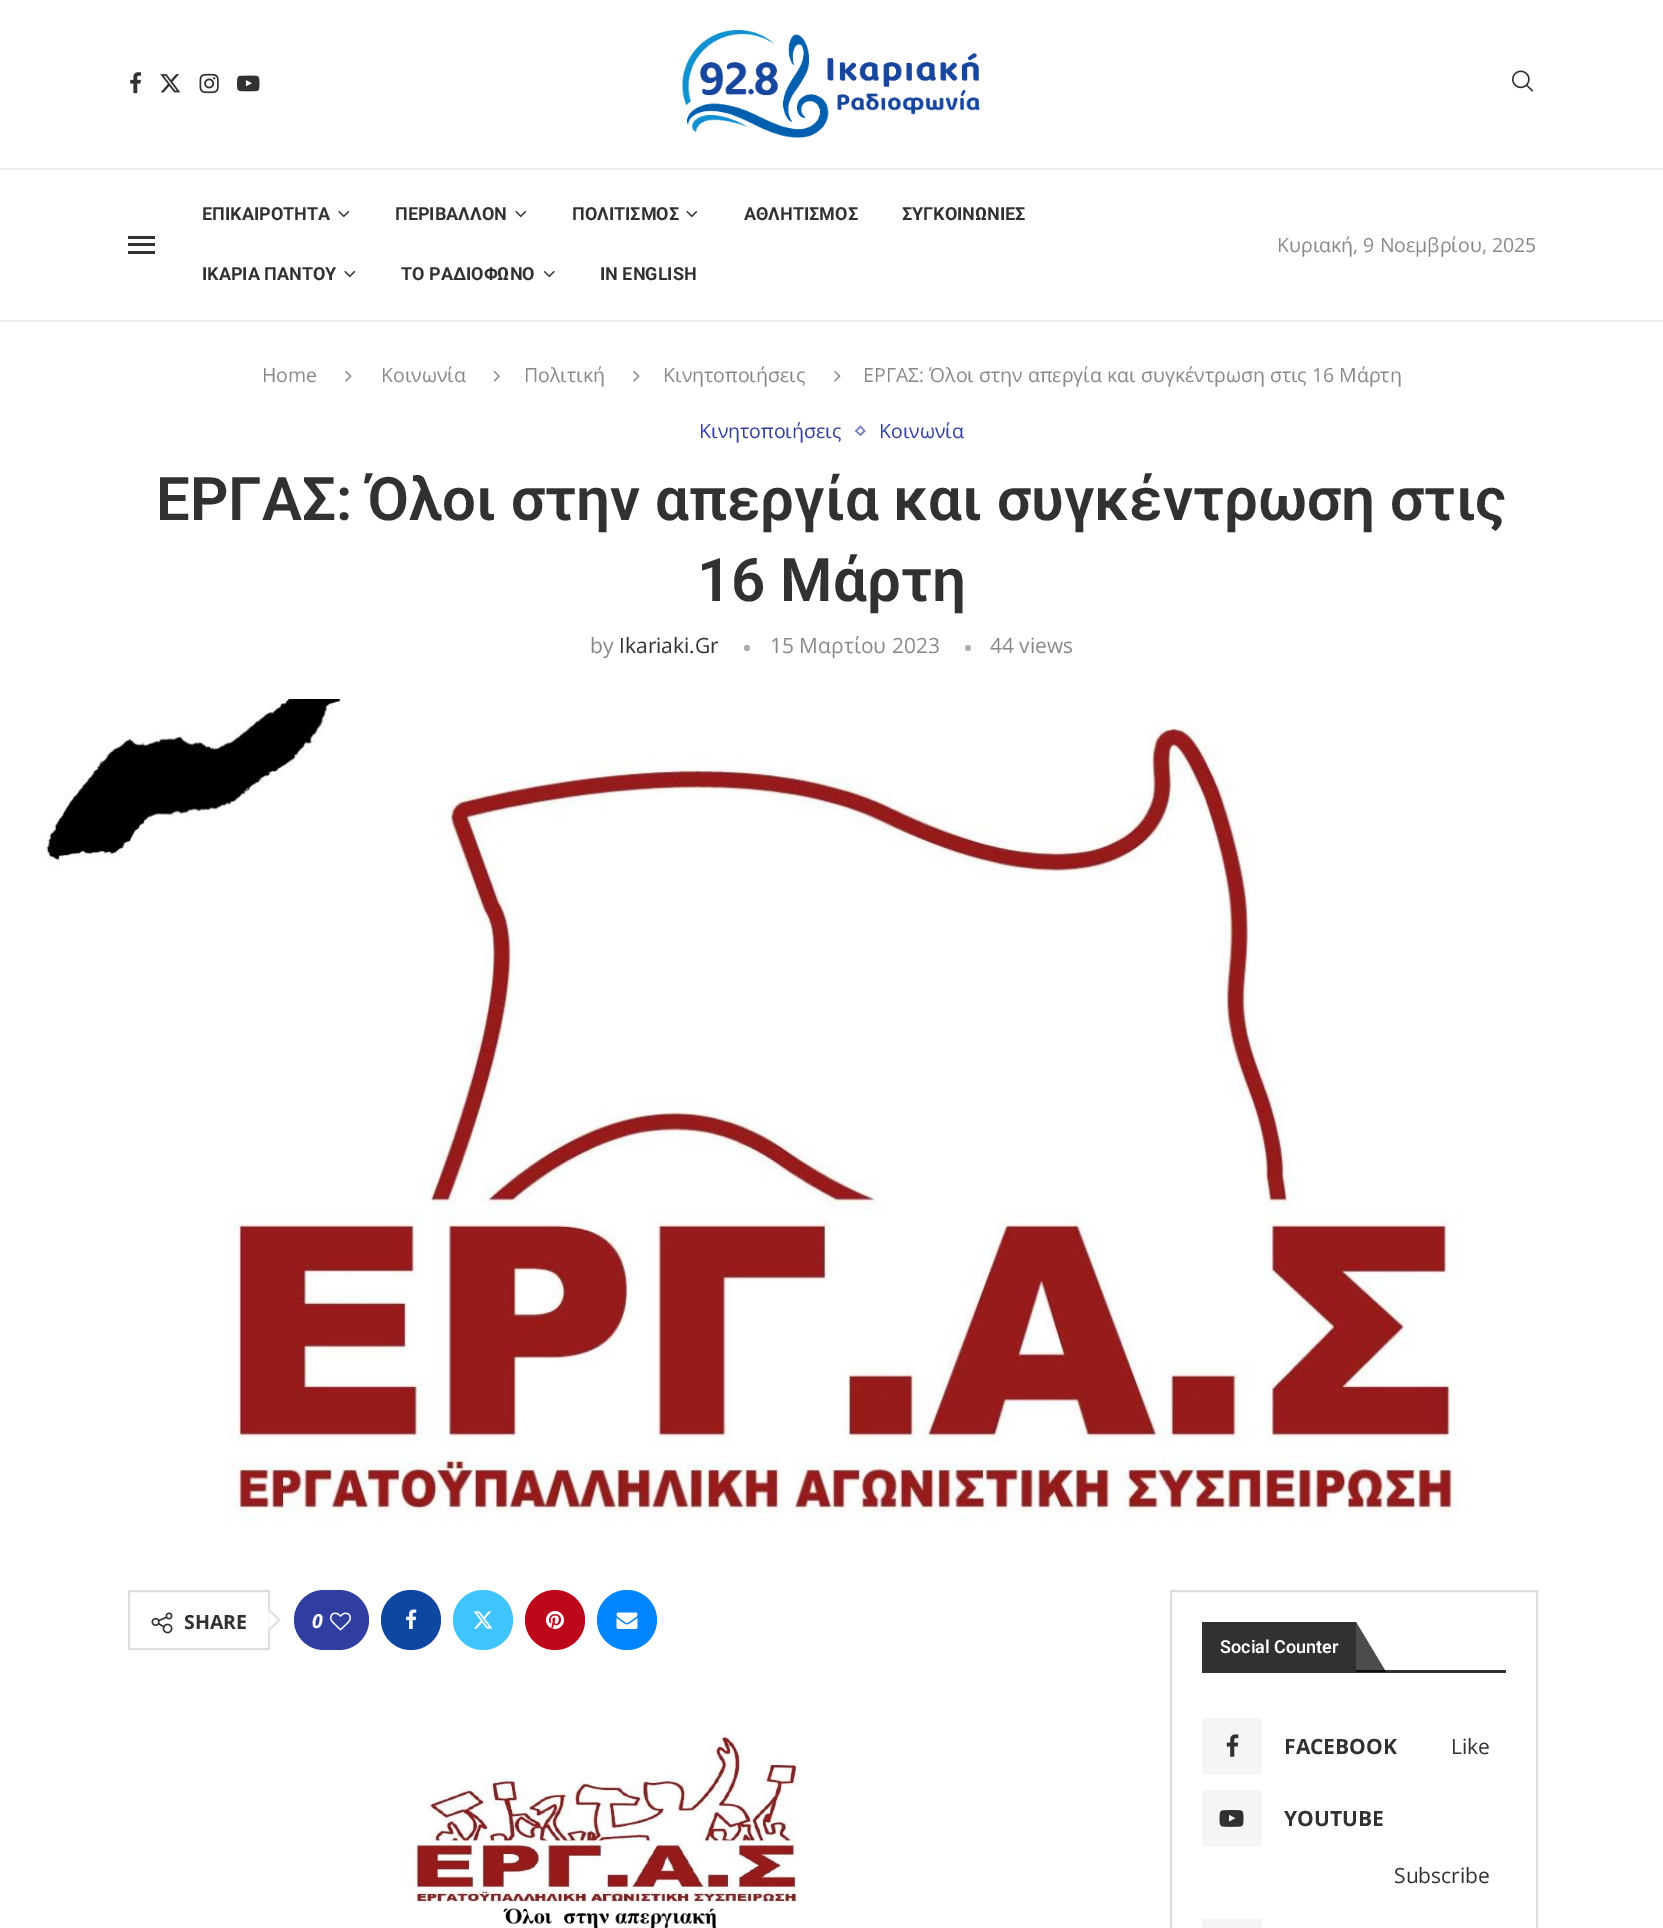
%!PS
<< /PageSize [1663 1928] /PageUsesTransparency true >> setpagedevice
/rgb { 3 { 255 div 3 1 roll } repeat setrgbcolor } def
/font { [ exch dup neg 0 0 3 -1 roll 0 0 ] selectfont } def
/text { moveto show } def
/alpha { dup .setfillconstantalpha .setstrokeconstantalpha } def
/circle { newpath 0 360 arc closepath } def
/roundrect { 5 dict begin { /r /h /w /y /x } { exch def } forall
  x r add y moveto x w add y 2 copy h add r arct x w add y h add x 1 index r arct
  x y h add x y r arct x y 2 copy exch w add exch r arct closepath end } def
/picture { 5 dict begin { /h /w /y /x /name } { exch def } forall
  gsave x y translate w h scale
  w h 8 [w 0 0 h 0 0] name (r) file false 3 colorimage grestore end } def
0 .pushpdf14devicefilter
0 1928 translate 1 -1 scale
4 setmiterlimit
255 255 255 rgb
0 0 1663 1928 rectfill
(img_01.rgb) 130 72 12 22 picture
(img_02.rgb) 160 74 21 19 picture
(img_03.rgb) 199 73 20 21 picture
(img_04.rgb) 237 75 23 17 picture
(img_05.rgb) 682 30 298 108 picture
(img_06.rgb) 1512 70 21 22 picture
237 237 237 rgb
0 168 1663 2 rectfill
0 320 1663 2 rectfill
49 49 49 rgb
128 236 27 3 rectfill
128 251 27 3 rectfill
128 243 27 3 rectfill
(img_07.rgb) 338 210 12 8 picture
(img_07.rgb) 515 210 12 8 picture
(img_07.rgb) 686 210 12 8 picture
(img_07.rgb) 344 270 12 8 picture
(img_08.rgb) 543 270 12 8 picture
(img_09.rgb) 345 370 7 12 picture
(img_10.rgb) 493 370 7 12 picture
(img_09.rgb) 633 370 7 12 picture
(img_09.rgb) 834 370 7 12 picture
120 130 193 rgb
1.5 setlinewidth
860.5 426.5 moveto 4 4.5 rlineto -4 4 rlineto -4.5 -4 rlineto closepath stroke
172 172 172 rgb
747 648 3 circle fill
968 648 3 circle fill
(img_11.rgb) 0 699 1663 831 picture
222 222 222 rgb
2 setlinewidth
129 1591 140 58 rectstroke
268.5 1632 moveto 0 -24 rlineto 12 12 rlineto closepath fill
(img_12.rgb) 151 1612 22 22 picture
255 255 255 rgb
268.5 1629 moveto 0 -18 rlineto 9 9 rlineto closepath fill
48 63 159 rgb
294 1590 75 60 30 roundrect fill
(img_13.rgb) 330 1612 21 19 picture
13 71 161 rgb
411 1620 30 circle fill
(img_14.rgb) 406 1609 11 20 picture
64 196 255 rgb
483 1620 30 circle fill
(img_15.rgb) 473 1611 20 18 picture
189 8 28 rgb
555 1620 30 circle fill
(img_16.rgb) 546 1611 18 18 picture
0 132 255 rgb
627 1620 30 circle fill
(img_17.rgb) 616 1612 22 17 picture
(img_18.rgb) 406 1733 392 195 picture
222 222 222 rgb
1171 1591 366 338 rectstroke
49 49 49 rgb
1356 1670 150 3 rectfill
1202 1622 154 51 rectfill
0.7 alpha
0 0 0 rgb
1386 1672 moveto -30 0 rlineto 0 -50 rlineto closepath fill
1 alpha
245 245 245 rgb
1202 1718 60 57 rectfill
(img_19.rgb) 1226 1734 13 23 picture
1202 1790 60 57 rectfill
(img_20.rgb) 1219 1810 25 17 picture
1202 1919 60 9 rectfill
/Roboto-Bold 18 font
49 49 49 rgb
(ΕΠΙΚΑΙΡΟΤΗΤΑ) 202 220 text
(ΠΕΡΙΒΑΛΛΟΝ) 395 220 text
(ΠΟΛΙΤΙΣΜΟΣ) 572 220 text
(ΑΘΛΗΤΙΣΜΟΣ) 744 220 text
(ΣΥΓΚΟΙΝΩΝΙΕΣ) 902 220 text
(ΙΚΑΡΙΑ ΠΑΝΤΟΥ) 202 280 text
(ΤΟ ΡΑΔΙΟΦΩΝΟ) 401 280 text
(IN ENGLISH) 600 280 text
/OpenSans-Regular 19.5 font
136 136 136 rgb
(Κυριακή, 9 Νοεμβρίου, 2025) 1277 252 text
(Home) 262 382 text
(Κοινωνία) 381 382 text
(Πολιτική) 524 382 text
(Κινητοποιήσεις) 663 382 text
(ΕΡΓΑΣ: Όλοι στην απεργία και συγκέντρωση στις 16 Μάρτη) 863 382 text
48 63 159 rgb
(Κινητοποιήσεις) 699 438 text
(Κοινωνία) 879 438 text
/Roboto-SemiBold 60 font
49 49 49 rgb
(ΕΡΓΑΣ: Όλοι στην απεργία και συγκέντρωση στις) 156 520 text
(16 Μάρτη) 697 601 text
/OpenSans-Regular 21 font
136 136 136 rgb
(by) 590 653 text
49 49 49 rgb
(Ikariaki.Gr) 619 653 text
136 136 136 rgb
(15 Μαρτίου 2023) 770 653 text
(44 views) 990 653 text
/OpenSans-Bold 19.5 font
49 49 49 rgb
(SHARE) 184 1629 text
/OpenSans-BoldItalic 19.5 font
255 255 255 rgb
(0) 312 1628 text
/Roboto-SemiBold 18 font
(Social Counter) 1220 1653 text
/OpenSans-Bold 21 font
49 49 49 rgb
(FACEBOOK) 1284 1754 text
/OpenSans-Regular 21 font
(Like) 1451 1754 text
/OpenSans-Bold 21 font
(YOUTUBE) 1284 1826 text
/OpenSans-Regular 21 font
(Subscribe) 1394 1883 text
.poppdf14devicefilter showpage
